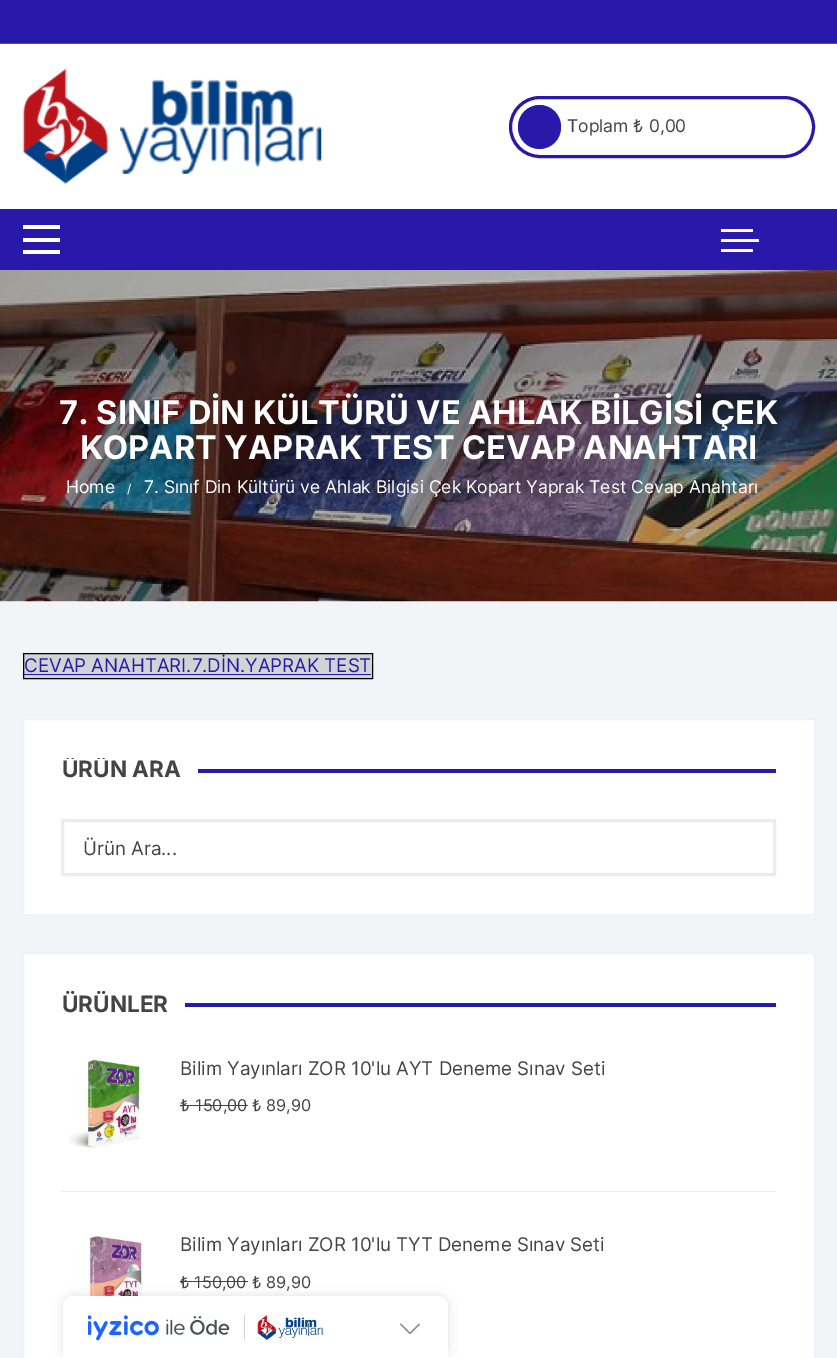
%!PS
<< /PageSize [837 1358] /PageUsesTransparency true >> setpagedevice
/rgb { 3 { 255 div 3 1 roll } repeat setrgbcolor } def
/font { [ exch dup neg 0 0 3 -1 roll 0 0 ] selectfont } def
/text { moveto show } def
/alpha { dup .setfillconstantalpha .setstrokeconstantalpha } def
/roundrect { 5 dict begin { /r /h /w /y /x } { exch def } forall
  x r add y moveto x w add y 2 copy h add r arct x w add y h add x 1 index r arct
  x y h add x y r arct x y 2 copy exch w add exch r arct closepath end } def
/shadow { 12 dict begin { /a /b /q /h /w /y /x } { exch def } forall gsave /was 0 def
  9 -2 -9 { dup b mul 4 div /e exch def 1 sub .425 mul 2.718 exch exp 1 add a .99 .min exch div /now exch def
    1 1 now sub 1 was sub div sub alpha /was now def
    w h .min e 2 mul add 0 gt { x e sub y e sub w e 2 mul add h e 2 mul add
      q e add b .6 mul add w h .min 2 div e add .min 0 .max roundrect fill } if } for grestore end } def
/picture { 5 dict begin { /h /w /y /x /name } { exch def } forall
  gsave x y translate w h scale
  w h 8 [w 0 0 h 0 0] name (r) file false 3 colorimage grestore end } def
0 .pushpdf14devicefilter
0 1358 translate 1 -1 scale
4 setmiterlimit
243 244 248 rgb
0 0 837 1358 rectfill
255 255 255 rgb
0 44 837 165 rectfill
40 25 170 rgb
0 0 837 43 rectfill
83 71 187 rgb
0 43 837 1 rectfill
(img_01.rgb) 22 68 300 116 picture
40 25 170 rgb
3 setlinewidth
510.5 97.5 303 59 29.5 roundrect stroke
518 105 43 44 21.5 roundrect fill
0 209 837 61 rectfill
255 255 255 rgb
23 225 37 4 rectfill
23 238 37 4 rectfill
23 250 37 4 rectfill
721 229 32 3 rectfill
721 239 38 3 rectfill
721 249 32 3 rectfill
(img_02.rgb) 0 270 837 332 picture
211 211 211 rgb
23.5 653.5 moveto 349 0 rlineto 0 25 rlineto -349 0 rlineto closepath gsave fill grestore
0 0 0 rgb
1 setlinewidth
stroke
40 25 170 rgb
24 674 347 1 rectfill
255 255 255 rgb
23.5 719.5 moveto 791 0 rlineto 0 195 rlineto -791 0 rlineto closepath gsave fill grestore
238 241 253 rgb
stroke
40 25 170 rgb
198 769 578 4 rectfill
236 236 236 rgb
3 setlinewidth
62.5 820.5 712 54 rectstroke
255 255 255 rgb
23.5 953.5 moveto 791 0 rlineto 0 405 rlineto -791 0 rlineto closepath gsave fill grestore
238 241 253 rgb
1 setlinewidth
stroke
40 25 170 rgb
185 1003 591 4 rectfill
236 236 236 rgb
61 1191 715 1 rectfill
(img_03.rgb) 68 1059 73 89 picture
68 68 68 rgb
180 1105 10 1 rectfill
190 1105 58 1 rectfill
(img_04.rgb) 70 1235 72 62 picture
180 1281 68 1 rectfill
0 0 0 rgb
63 1296 385 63 10 5 0.12 shadow
255 255 255 rgb
73 1296 moveto 365 0 rlineto 5.5 0 10 4.5 10 10 rcurveto 0 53 rlineto -385 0 rlineto 0 -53 rlineto 0 -5.5 4.5 -10 10 -10 rcurveto closepath fill
(img_05.rgb) 88 1315 142 26 picture
206 212 218 rgb
244 1315 1 25 rectfill
(img_06.rgb) 257 1315 66 25 picture
(img_07.rgb) 400 1323 20 11 picture
/Inter-Regular 17.5 font
68 68 68 rgb
(Toplam ₺ 0,00) 567 132 text
/Inter-Bold 32.5 font
255 255 255 rgb
(7. SINIF DİN KÜLTÜRÜ VE AHLAK BİLGİSİ ÇEK) 59 424 text
(KOPART YAPRAK TEST CEVAP ANAHTARI) 80 459 text
/Inter-Regular 17.5 font
(Home) 66 493 text
/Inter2-Regular 12 font
(/) 127 493 text
/Inter-Regular 17.5 font
(7. Sınıf Din Kültürü ve Ahlak Bilgisi Çek Kopart Yaprak Test Cevap Anahtarı) 144 493 text
/Inter-Regular 18.75 font
40 25 170 rgb
(CEVAP ANAHTARI.7.DİN.YAPRAK TEST) 24 672 text
gsave
61 758 715 23 rectclip
/Inter-Bold 22.5 font
68 68 68 rgb
(ÜRÜN ARA) 62 777 text
grestore
68 68 68 rgb
(Ürün Ara...) 83 855 text
gsave
61 991 715 25 rectclip
/Inter-Bold 22.5 font
(ÜRÜNLER) 62 1012 text
grestore
(Bilim Yayınları ZOR 10'lu AYT Deneme Sınav Seti) 180 1075 text
/Inter2-Regular 16.25 font
(₺) 180 1111 text
/Inter-Regular 16.25 font
(150,00) 195 1111 text
(₺ 89,90) 252 1111 text
/Inter-Regular 18.75 font
(Bilim Yayınları ZOR 10'lu TYT Deneme Sınav Seti) 180 1251 text
/Inter-Regular 16.25 font
(₺ 150,00) 180 1288 text
(₺ 89,90) 252 1288 text
.poppdf14devicefilter showpage
